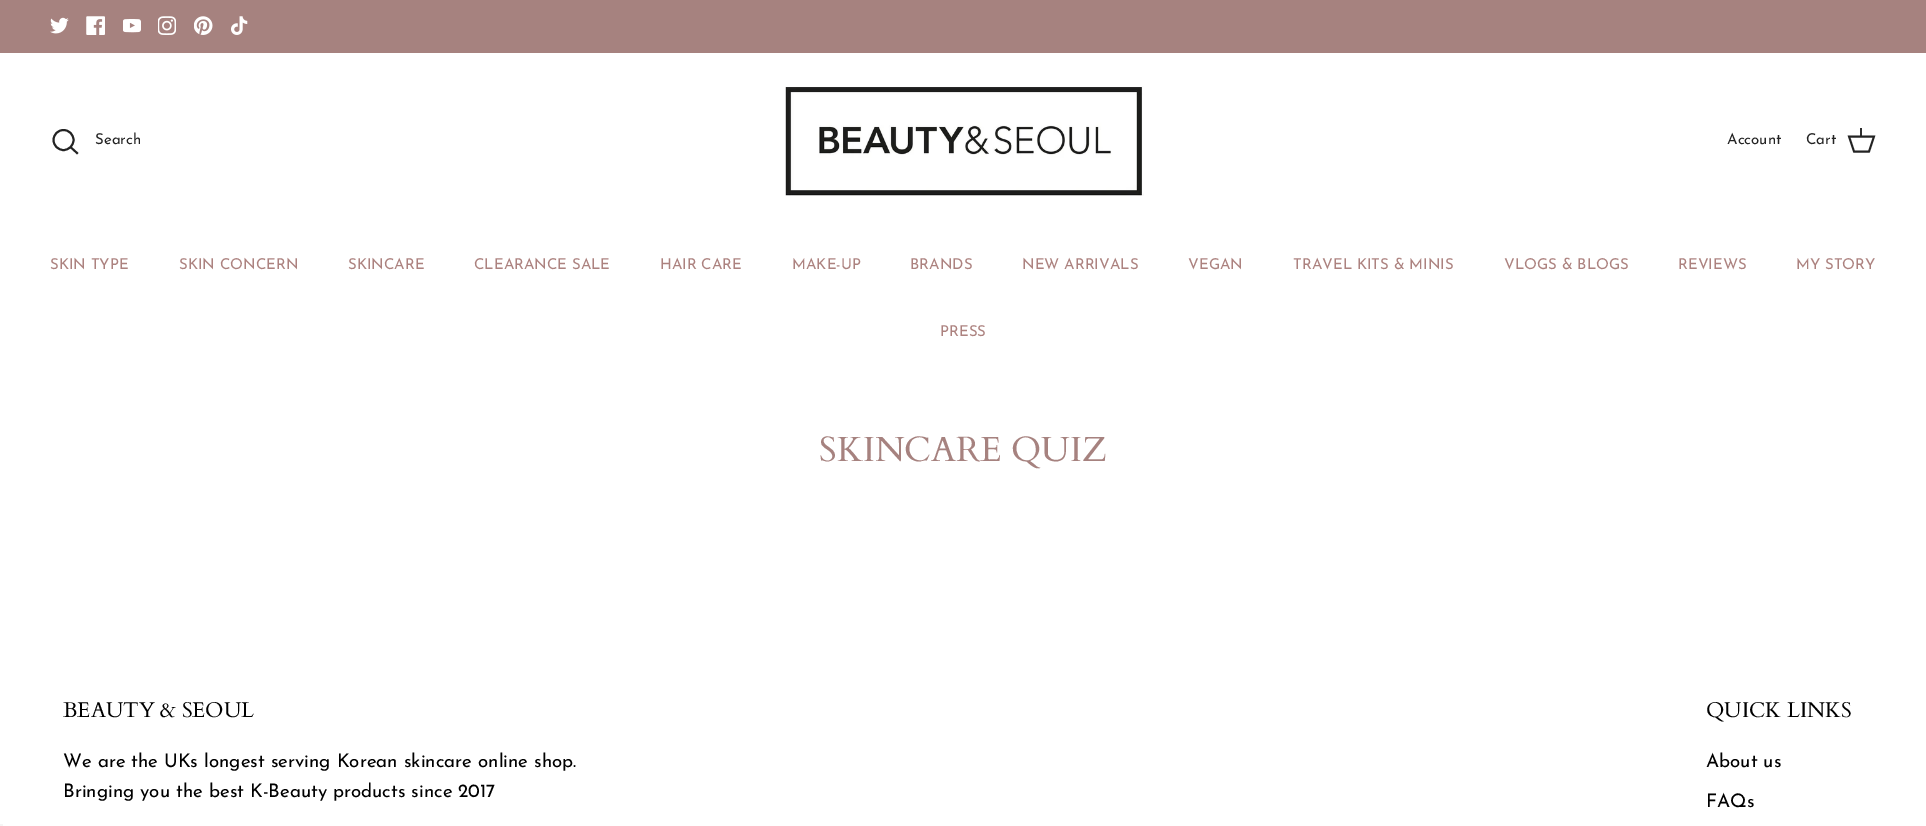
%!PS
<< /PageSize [1926 826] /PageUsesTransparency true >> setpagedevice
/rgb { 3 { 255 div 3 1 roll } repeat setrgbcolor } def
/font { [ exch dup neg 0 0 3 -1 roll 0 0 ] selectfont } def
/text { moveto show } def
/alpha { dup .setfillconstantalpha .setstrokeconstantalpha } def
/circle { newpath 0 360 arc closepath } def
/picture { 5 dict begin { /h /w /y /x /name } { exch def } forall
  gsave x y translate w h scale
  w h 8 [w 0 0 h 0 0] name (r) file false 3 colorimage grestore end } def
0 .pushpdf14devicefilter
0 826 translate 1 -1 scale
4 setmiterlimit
255 255 255 rgb
0 0 1926 826 rectfill
166 130 127 rgb
0 0 1926 53 rectfill
(img_01.rgb) 50 17 19 17 picture
(img_02.rgb) 86 16 19 19 picture
(img_03.rgb) 123 19 18 14 picture
(img_04.rgb) 158 16 18 19 picture
(img_05.rgb) 194 16 19 19 picture
(img_06.rgb) 231 16 17 19 picture
35 35 35 rgb
1.9 setlinewidth
63.5 140 10 circle stroke
2 setlinecap
71 147.5 moveto 6 5.5 rlineto stroke
(img_07.rgb) 785 86 359 110 picture
0 setlinecap
1849 136.5 moveto 25 0 rlineto -5 15 rlineto -15 0 rlineto closepath stroke
0.95 alpha
1860 128 2 9 rectfill
1 alpha
245 245 245 rgb
0 824 3 2 rectfill
/JosefinSans-Regular 15 font
35 35 35 rgb
(Search) 95 144 text
(Account) 1727 144 text
(Cart) 1806 144 text
172 130 127 rgb
(SKIN TYPE) 50 269 text
(SKIN CONCERN) 179 269 text
(SKINCARE) 348 269 text
(CLEARANCE SALE) 474 269 text
(HAIR CARE) 660 269 text
(MAKE-UP) 792 269 text
(BRANDS) 910 269 text
(NEW ARRIVALS) 1022 269 text
(VEGAN) 1188 269 text
(TRAVEL KITS & MINIS) 1293 269 text
(VLOGS & BLOGS) 1504 269 text
(REVIEWS) 1678 269 text
(MY STORY) 1796 269 text
(PRESS) 940 336 text
/Cardo-Regular 35 font
166 130 127 rgb
(SKINCARE QUIZ) 819 461 text
/Cardo-Regular 21.25 font
0 0 0 rgb
(BEAUTY & SEOUL) 63 717 text
/JosefinSans-Regular 18.75 font
(We are the UKs longest serving Korean skincare online shop.) 63 767 text
(Bringing you the best K-Beauty products since 2017) 63 797 text
/Cardo-Regular 21.25 font
(QUICK LINKS) 1706 717 text
/JosefinSans-Regular 18.75 font
(About us) 1706 767 text
(FAQs) 1706 807 text
.poppdf14devicefilter showpage
